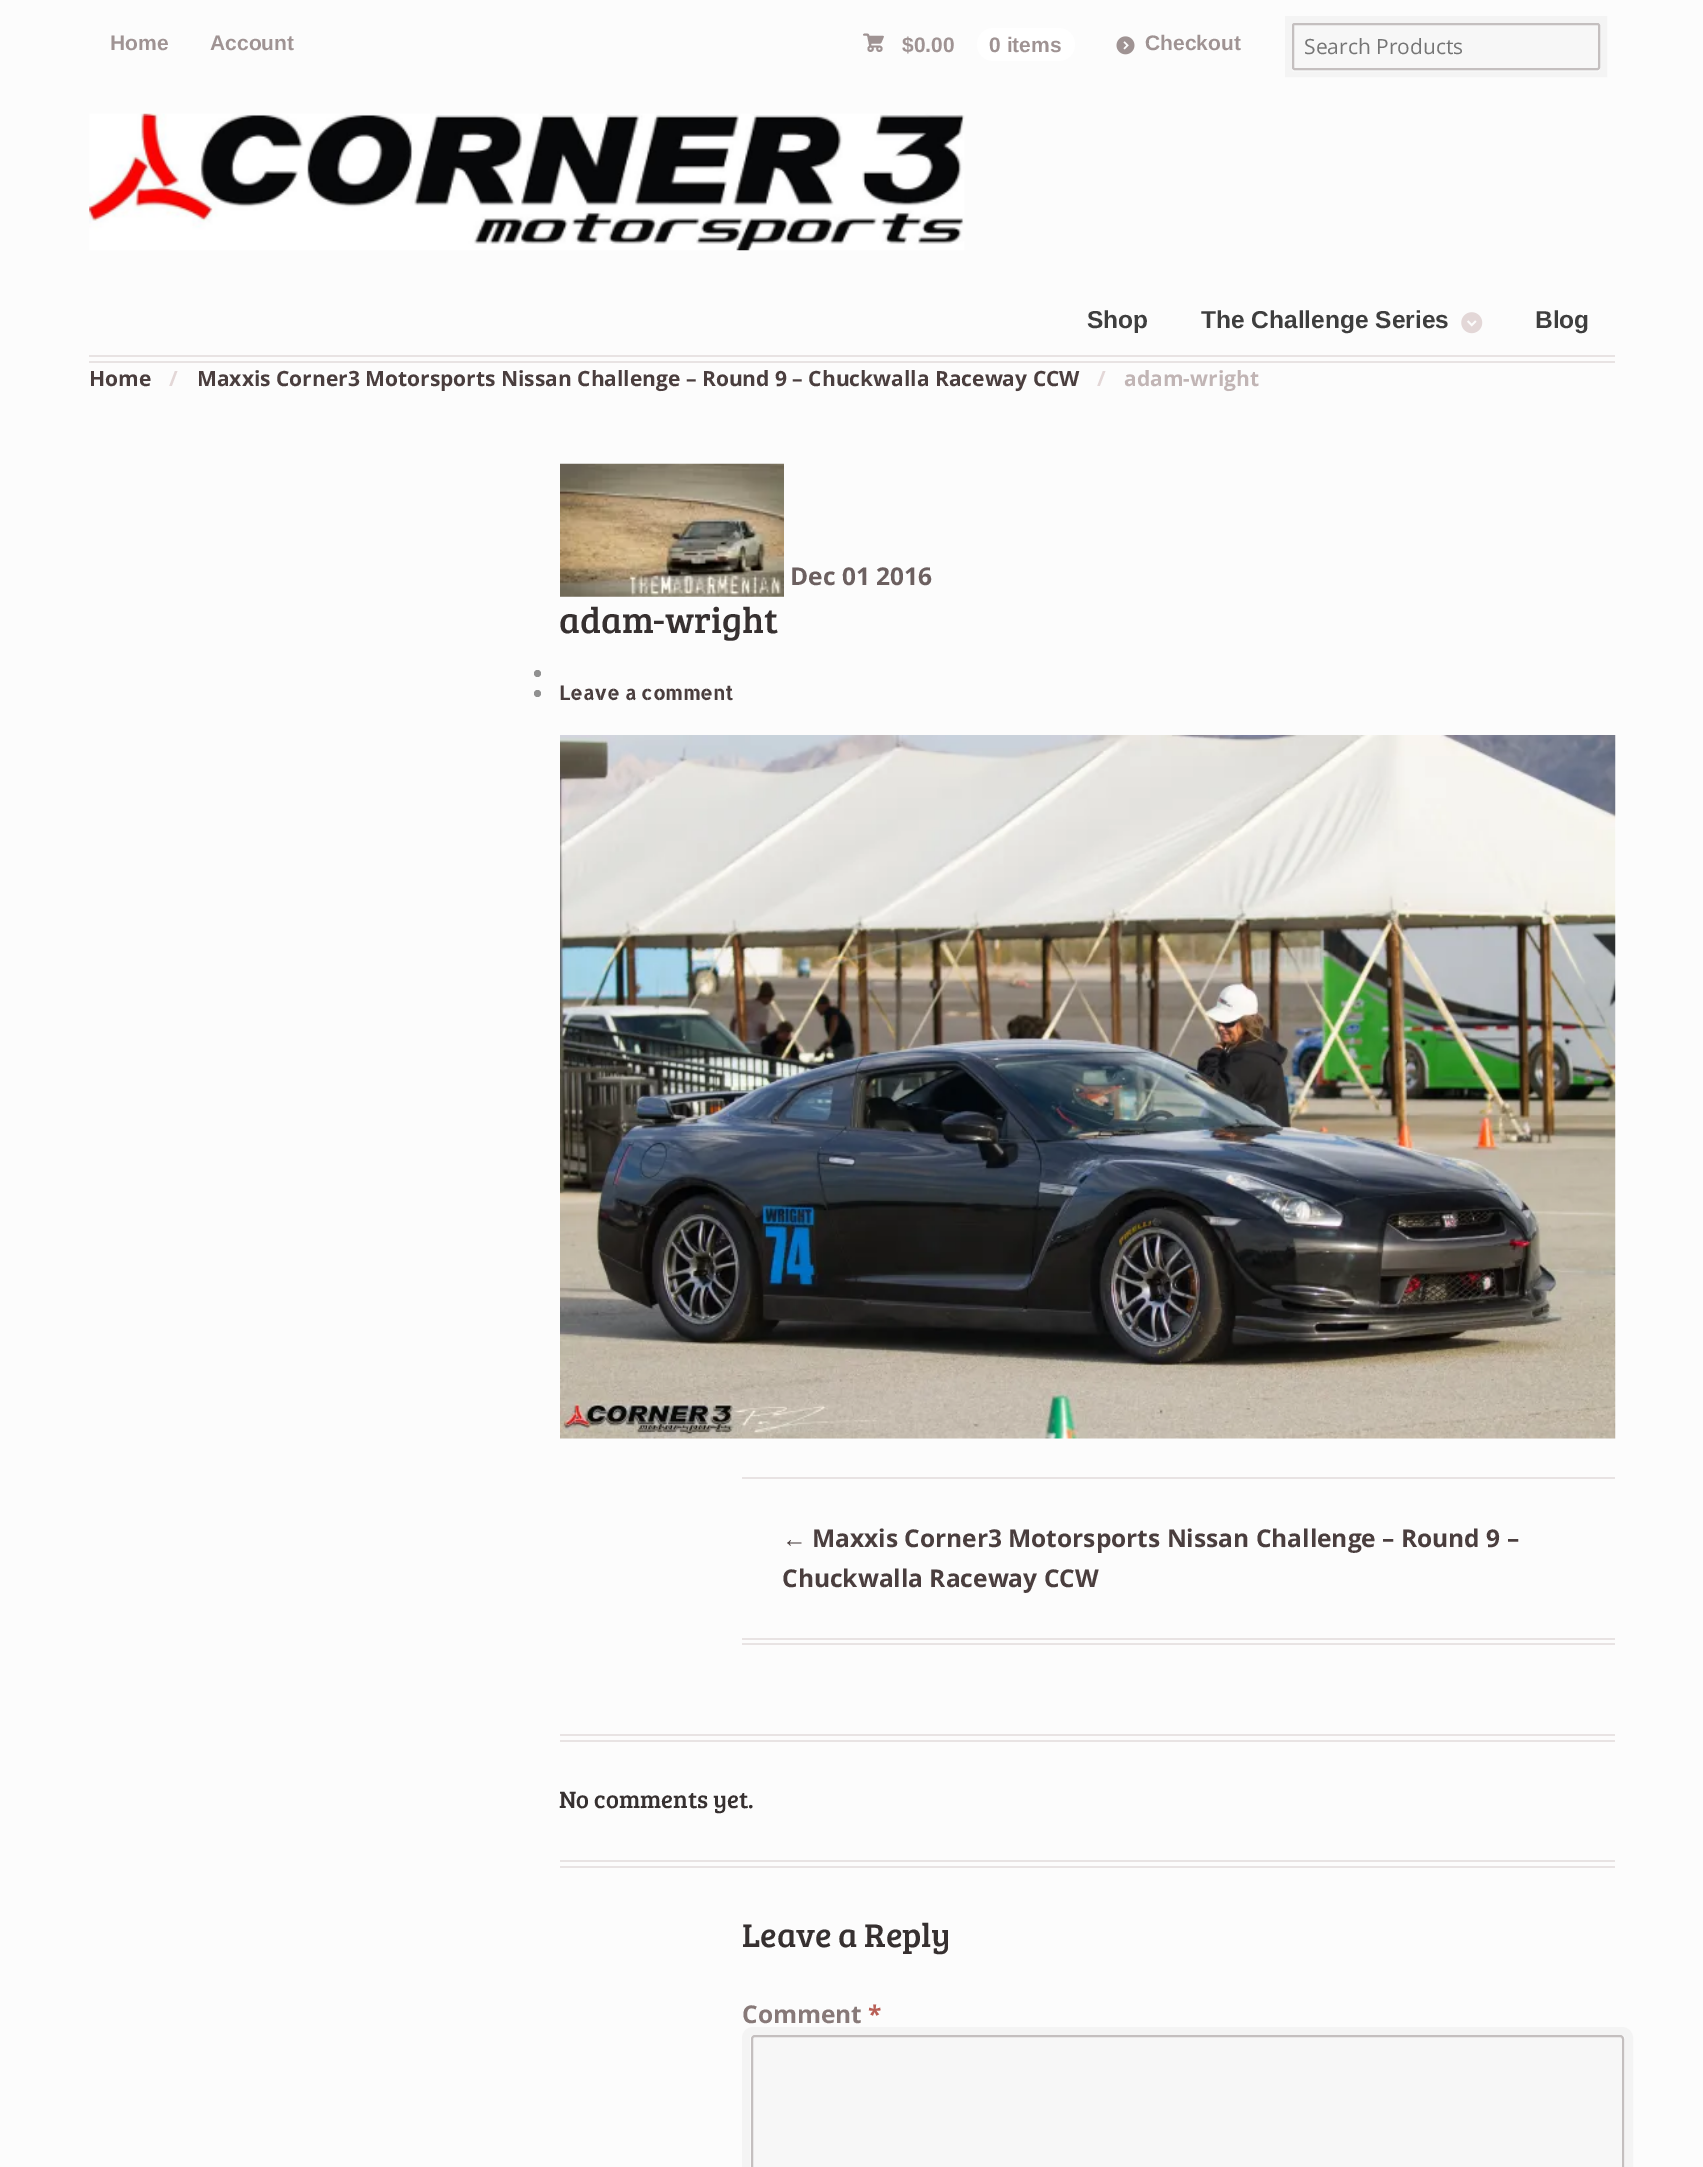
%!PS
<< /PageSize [1703 2167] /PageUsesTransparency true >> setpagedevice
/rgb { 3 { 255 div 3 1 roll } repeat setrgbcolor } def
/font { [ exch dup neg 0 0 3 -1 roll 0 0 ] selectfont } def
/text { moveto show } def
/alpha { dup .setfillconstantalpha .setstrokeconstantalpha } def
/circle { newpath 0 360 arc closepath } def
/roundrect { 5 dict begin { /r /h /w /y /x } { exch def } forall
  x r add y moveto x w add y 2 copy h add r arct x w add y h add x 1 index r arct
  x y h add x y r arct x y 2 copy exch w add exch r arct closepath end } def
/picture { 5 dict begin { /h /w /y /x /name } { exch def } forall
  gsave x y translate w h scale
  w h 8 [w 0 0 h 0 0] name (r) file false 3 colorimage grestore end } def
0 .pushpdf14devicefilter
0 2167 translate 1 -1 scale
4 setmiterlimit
252 252 252 rgb
0 0 1703 2167 rectfill
255 255 255 rgb
977 28 98 33 16.5 roundrect fill
(img_01.rgb) 1116 36 19 19 picture
1292 69 moveto 0 1 rlineto 0 1 1 2 2 2 rcurveto 304 0 rlineto 1 0 2 -1 2 -2 rcurveto 0 -42 rlineto 0 -2 rlineto 0 41 rlineto 0 2 -2 3 -3 3 rcurveto -303 0 rlineto -1 0 -2 0 -2 -1 rcurveto closepath fill
0.03 alpha
0 0 0 rgb
7 setlinewidth
1288.5 19.5 315 54 rectstroke
1 alpha
247 247 247 rgb
1293 24 306 45 1.5 roundrect gsave fill grestore
196 191 191 rgb
2 setlinewidth
stroke
232 227 227 rgb
89 355 1526 2 rectfill
89 361 1526 2 rectfill
(img_02.rgb) 89 113 876 138 picture
(img_03.rgb) 1461 312 22 22 picture
(img_04.rgb) 560 463 224 134 picture
145 145 145 rgb
537.5 673.5 3.5 circle fill
537.5 693.5 3.5 circle fill
(img_05.rgb) 560 735 1056 704 picture
232 227 227 rgb
742 1477 873 2 rectfill
742 1638 873 2 rectfill
742 1643 873 2 rectfill
560 1734 1055 2 rectfill
560 1740 1055 2 rectfill
560 1860 1055 2 rectfill
560 1866 1055 2 rectfill
244 244 244 rgb
8 setlinewidth
746 2031 883 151 7 roundrect stroke
247 247 247 rgb
752 2036 871 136 3 roundrect gsave fill grestore
196 191 191 rgb
2 setlinewidth
stroke
/LiberationSans-Bold 21 font
159 147 147 rgb
(Home) 110 50 text
(Account) 210 50 text
/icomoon-Regular 21 font
(£) 863 52 text
/LiberationSans-Bold 21 font
($0.00) 902 52 text
(0 items) 989 52 text
(Checkout) 1145 50 text
/OpenSans-Regular 21 font
117 117 117 rgb
(Search Products) 1304 54 text
/LiberationSans-Bold 24.5 font
62 62 62 rgb
(Shop) 1087 328 text
(The Challenge Series) 1201 328 text
(Blog) 1535 328 text
/OpenSans-Bold 21 font
74 62 62 rgb
(Home) 89 386 text
227 215 215 rgb
(/) 169 386 text
74 62 62 rgb
(Maxxis Corner3 Motorsports Nissan Challenge – Round 9 – Chuckwalla Raceway CCW) 197 386 text
227 215 215 rgb
(/) 1097 386 text
193 181 181 rgb
(adam-wright) 1124 386 text
/OpenSans-Bold 24.5 font
108 96 96 rgb
(Dec 01 2016) 790 585 text
/BreeSerif-Regular 36.75 font
54 48 48 rgb
(adam-wright) 559 633 text
/AllertaStencil-Bold 19.5 font
74 62 62 rgb
(Leave a comment) 559 700 text
/LiberationSans-Bold 24.5 font
(←) 782 1547 text
/OpenSans-Bold 24.5 font
(Maxxis Corner3 Motorsports Nissan Challenge – Round 9 –) 812 1547 text
(Chuckwalla Raceway CCW) 782 1587 text
/BreeSerif-Regular 24.5 font
54 48 48 rgb
(No comments yet.) 559 1808 text
/BreeSerif-Regular 34 font
(Leave a Reply) 742 1947 text
/OpenSans-Bold 24.5 font
135 121 120 rgb
(Comment) 742 2023 text
184 95 86 rgb
(*) 868 2023 text
.poppdf14devicefilter showpage
